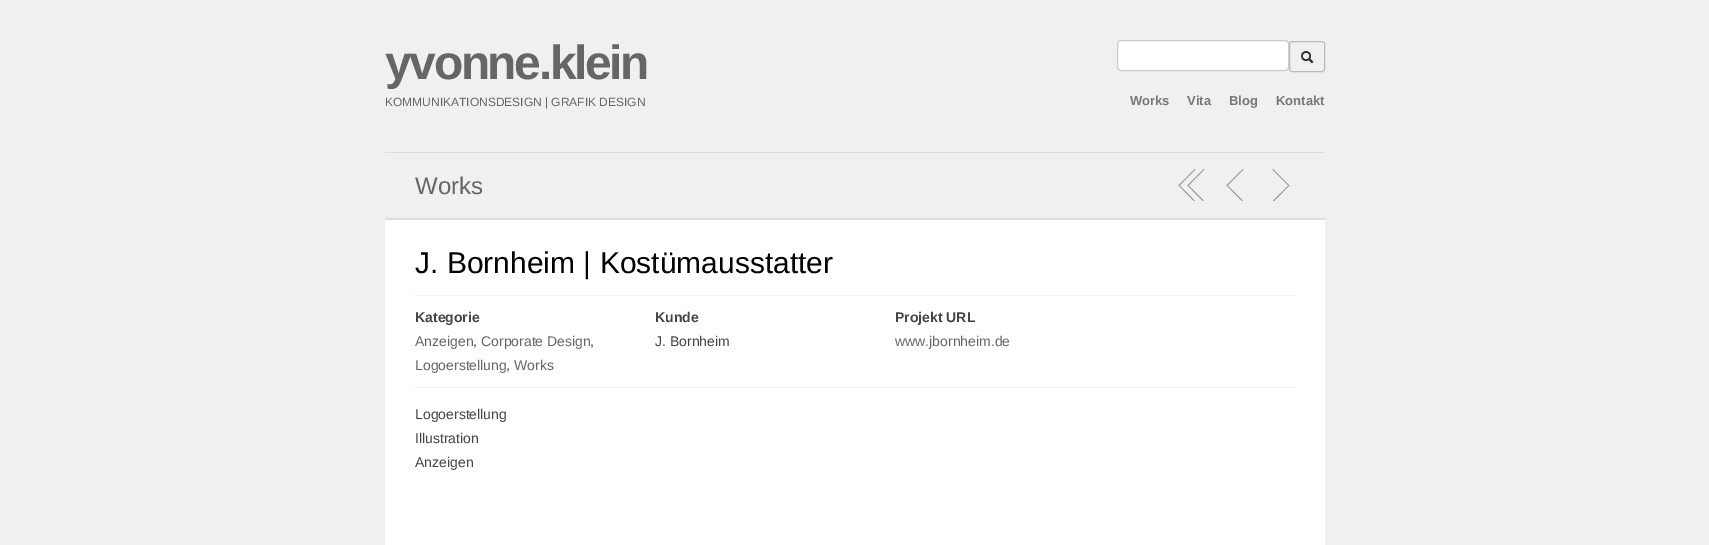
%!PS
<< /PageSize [1709 545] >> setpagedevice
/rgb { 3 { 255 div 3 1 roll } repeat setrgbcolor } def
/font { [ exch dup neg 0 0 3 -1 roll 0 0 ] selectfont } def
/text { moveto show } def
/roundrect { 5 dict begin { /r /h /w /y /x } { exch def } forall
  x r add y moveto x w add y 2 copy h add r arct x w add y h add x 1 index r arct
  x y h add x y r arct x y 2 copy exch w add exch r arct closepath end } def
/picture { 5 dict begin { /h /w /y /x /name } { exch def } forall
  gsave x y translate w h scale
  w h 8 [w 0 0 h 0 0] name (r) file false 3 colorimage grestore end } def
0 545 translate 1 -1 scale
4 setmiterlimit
240 240 240 rgb
0 0 1709 545 rectfill
255 255 255 rgb
1117.5 40.5 171 30 3.5 roundrect gsave fill grestore
204 204 204 rgb
stroke
187 187 187 rgb
1289.5 41.5 35 30 2.5 roundrect stroke
(img_01.rgb) 1301 51 13 13 picture
221 221 221 rgb
385 152 940 1 rectfill
385 218 940 2 rectfill
(img_02.rgb) 1178 169 27 32 picture
(img_03.rgb) 1226 169 18 32 picture
(img_04.rgb) 1272 169 18 32 picture
255 255 255 rgb
385 220 940 325 rectfill
240 240 240 rgb
415 295 880 1 rectfill
415 387 880 1 rectfill
/LiberationSans-Bold 48 font
102 102 102 rgb
385 79 moveto -2.4 0 (yvonne.klein) ashow
/LiberationSans-Regular 12 font
(KOMMUNIKATIONSDESIGN | GRAFIK DESIGN) 385 106 text
/LiberationSans-Bold 13 font
119 119 119 rgb
(Works) 1130 105 text
(Vita) 1187 105 text
(Blog) 1229 105 text
(Kontakt) 1276 105 text
/LiberationSans-Regular 24 font
102 102 102 rgb
(Works) 415 194 text
/LiberationSans-Regular 30 font
0 0 0 rgb
(J. Bornheim | Kostümausstatter) 415 273 text
/LiberationSans-Bold 14 font
68 68 68 rgb
(Kategorie) 415 322 text
/LiberationSans-Regular 14 font
102 102 102 rgb
(Anzeigen) 415 346 text
68 68 68 rgb
(,) 473 346 text
102 102 102 rgb
(Corporate Design) 481 346 text
68 68 68 rgb
(,) 590 346 text
102 102 102 rgb
(Logoerstellung) 415 370 text
68 68 68 rgb
(,) 506 370 text
102 102 102 rgb
(Works) 514 370 text
/LiberationSans-Bold 14 font
68 68 68 rgb
(Kunde) 655 322 text
/LiberationSans-Regular 14 font
(J. Bornheim) 655 346 text
/LiberationSans-Bold 14 font
(Projekt URL) 895 322 text
/LiberationSans-Regular 14 font
102 102 102 rgb
(www.jbornheim.de) 895 346 text
68 68 68 rgb
(Logoerstellung) 415 419 text
(Illustration) 415 443 text
(Anzeigen) 415 467 text
showpage
